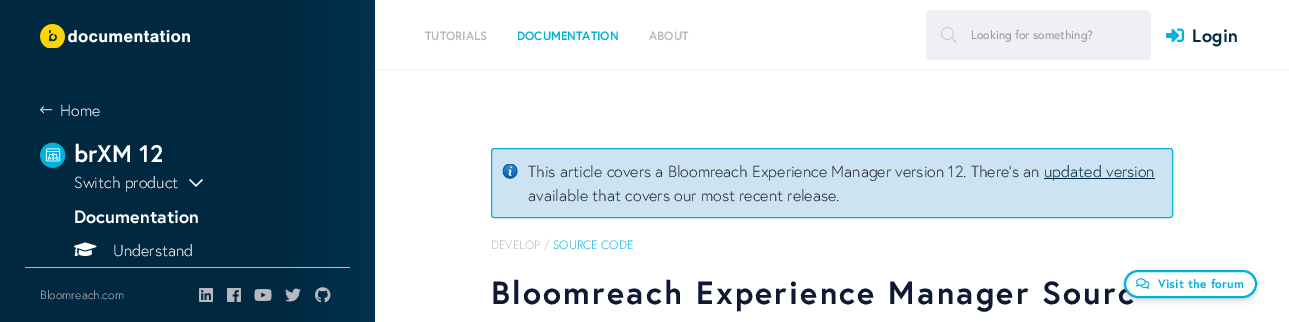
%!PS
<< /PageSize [1289 322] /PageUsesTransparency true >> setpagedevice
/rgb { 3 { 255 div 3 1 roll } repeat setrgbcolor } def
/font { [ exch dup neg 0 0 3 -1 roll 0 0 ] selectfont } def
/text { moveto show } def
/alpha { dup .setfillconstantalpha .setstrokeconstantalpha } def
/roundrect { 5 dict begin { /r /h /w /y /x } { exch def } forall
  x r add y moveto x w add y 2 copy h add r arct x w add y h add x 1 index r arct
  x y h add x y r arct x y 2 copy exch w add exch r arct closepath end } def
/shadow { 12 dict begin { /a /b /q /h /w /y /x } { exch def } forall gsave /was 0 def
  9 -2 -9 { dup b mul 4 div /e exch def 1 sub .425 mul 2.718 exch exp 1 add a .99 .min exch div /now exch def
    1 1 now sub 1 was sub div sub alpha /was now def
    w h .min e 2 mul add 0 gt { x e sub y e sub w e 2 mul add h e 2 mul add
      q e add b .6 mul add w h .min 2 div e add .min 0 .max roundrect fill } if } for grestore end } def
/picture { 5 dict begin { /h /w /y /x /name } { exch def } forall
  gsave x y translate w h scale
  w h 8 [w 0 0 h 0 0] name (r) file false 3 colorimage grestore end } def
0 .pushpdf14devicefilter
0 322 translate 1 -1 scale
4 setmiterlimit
255 255 255 rgb
0 0 1289 322 rectfill
gsave 0 0 moveto 375 0 rlineto 0 322 rlineto -375 0 rlineto closepath clip newpath
<< /ShadingType 2 /ColorSpace /DeviceRGB /Coords [0 161 375 161] /Extend [true true] /Function << /FunctionType 3 /Domain [0 1] /Functions [<< /FunctionType 2 /Domain [0 1] /C0 [0 0.157 0.251] /C1 [0 0.157 0.251] /N 1 >> << /FunctionType 2 /Domain [0 1] /C0 [0 0.157 0.251] /C1 [0 0.196 0.31] /N 1 >>] /Bounds [0.75] /Encode [0 1 0 1] >> >> shfill grestore
(img_01.rgb) 40 24 150 24 picture
239 240 244 rgb
375 69 914 1 rectfill
926 10 225 50 5 roundrect fill
(img_02.rgb) 941 27 16 16 picture
(img_03.rgb) 1166 28 18 15 picture
(img_04.rgb) 40 106 13 8 picture
(img_05.rgb) 40 142 26 26 picture
(img_06.rgb) 189 179 14 8 picture
(img_07.rgb) 74 242 23 14 picture
183 185 193 rgb
25 267 325 1 rectfill
(img_08.rgb) 199 288 14 14 picture
(img_09.rgb) 227 288 14 14 picture
(img_10.rgb) 254 289 18 12 picture
(img_11.rgb) 285 288 16 14 picture
(img_12.rgb) 315 287 16 16 picture
204 228 242 rgb
491 148 682 70 3 roundrect fill
(img_13.rgb) 502 164 16 15 picture
0 178 219 rgb
491.5 148.5 681 69 2.5 roundrect stroke
0 40 64 rgb
1044 178 111 1 rectfill
0 0 0 rgb
1124 271 133 28 14 1.5 0.08 shadow
50 50 93 rgb
1124 274 133 28 14 3 0.11 shadow
/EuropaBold-Bold 12 font
183 185 193 rgb
(TUTORIALS) 425 40 text
0 178 219 rgb
(DOCUMENTATION) 517 40 text
183 185 193 rgb
(ABOUT) 649 40 text
/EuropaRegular-Regular 12 font
153 153 153 rgb
(Looking for something?) 971 39 text
/EuropaBold-Bold 18 font
0 40 64 rgb
1192 42 moveto 0.5 0 (Login) ashow
/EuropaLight-Light 16 font
255 255 255 rgb
(Home) 60 116 text
/EuropaBold-Bold 24 font
(brXM 12) 74 162 text
/EuropaLight-Light 16 font
(Switch product) 74 188 text
/EuropaBold-Bold 18 font
(Documentation) 74 223 text
/EuropaLight-Light 16 font
(Understand) 113 256 text
/EuropaLight-Light 12 font
183 185 193 rgb
(Bloomreach.com) 40 299 text
/EuropaLight-Light 16 font
33 37 41 rgb
(This article covers a Bloomreach Experience Manager version 12. There's an) 528 177 text
0 40 64 rgb
(updated version) 1044 177 text
33 37 41 rgb
(available that covers our most recent release.) 528 201 text
/EuropaLight-Light 12 font
183 185 193 rgb
(DEVELOP /) 491 249 text
0 178 219 rgb
(SOURCE CODE) 553 249 text
/EuropaBold-Bold 32 font
16 24 50 rgb
491 304 moveto 2.25 0 (Bloomreach Experience Manager Sourc) ashow
255 255 255 rgb
1125 271 131 26 13 roundrect gsave fill grestore
0 178 219 rgb
2 setlinewidth
stroke
(img_14.rgb) 1136 278 14 11 picture
/EuropaBold-Bold 12 font
1158 288 moveto 0.25 0 (Visit the forum) ashow
.poppdf14devicefilter showpage
